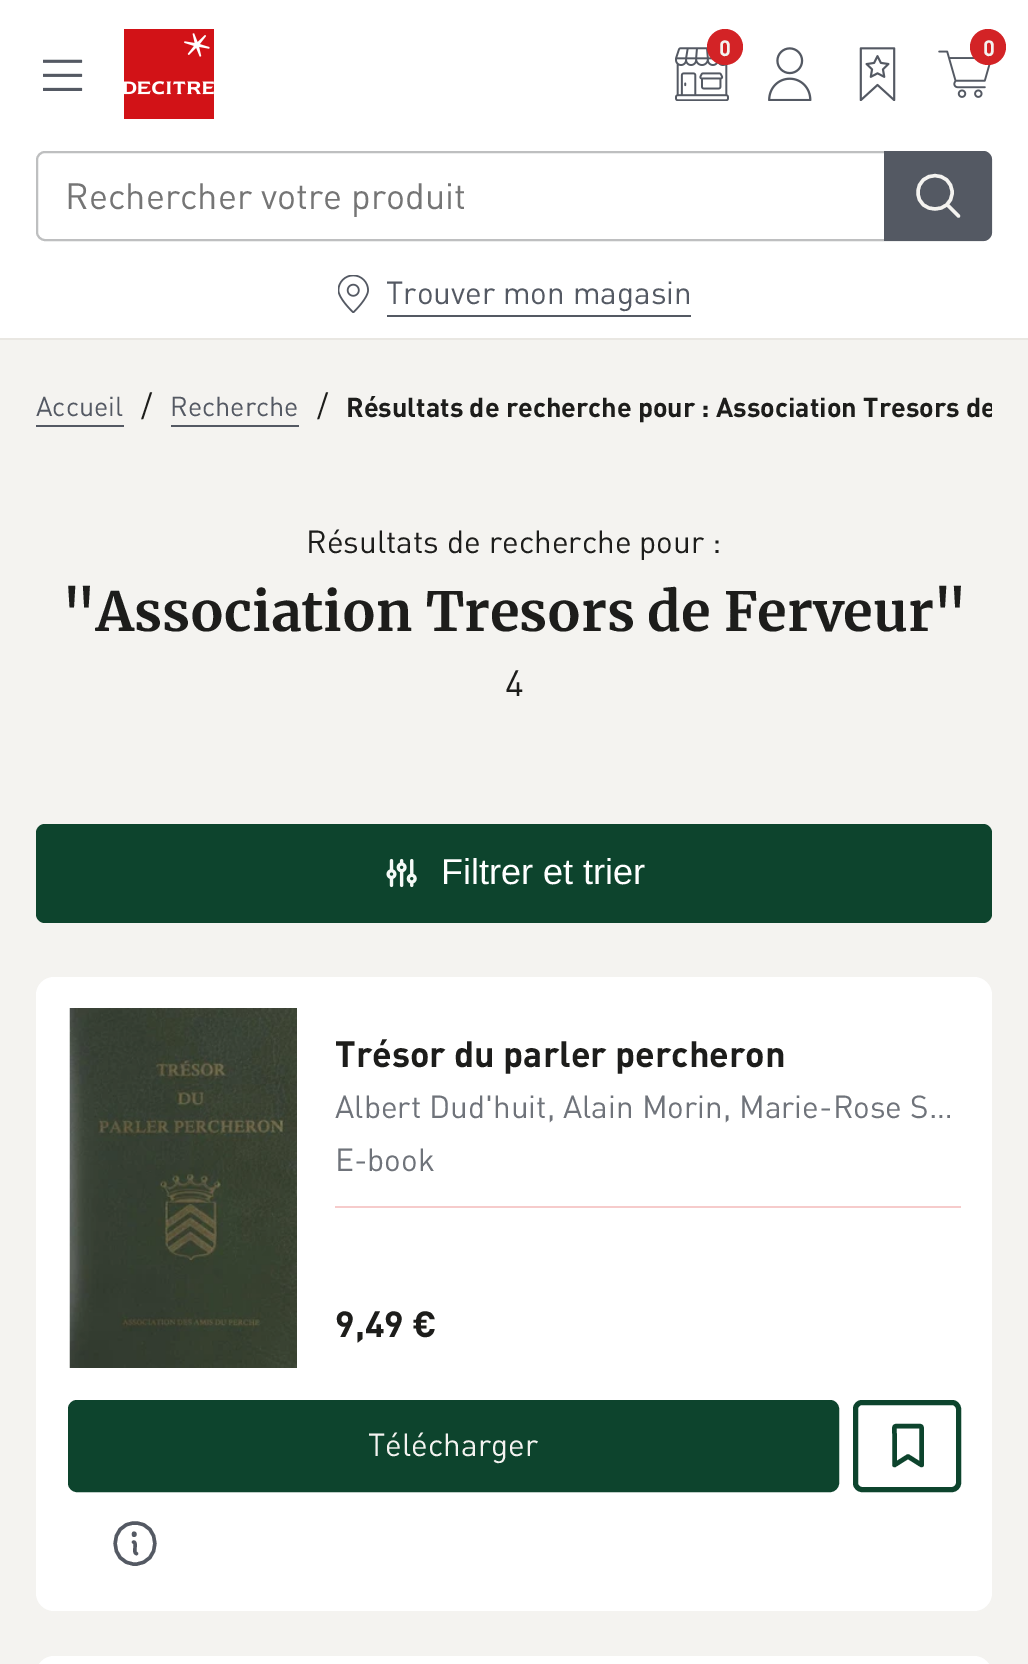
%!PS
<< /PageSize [1028 1664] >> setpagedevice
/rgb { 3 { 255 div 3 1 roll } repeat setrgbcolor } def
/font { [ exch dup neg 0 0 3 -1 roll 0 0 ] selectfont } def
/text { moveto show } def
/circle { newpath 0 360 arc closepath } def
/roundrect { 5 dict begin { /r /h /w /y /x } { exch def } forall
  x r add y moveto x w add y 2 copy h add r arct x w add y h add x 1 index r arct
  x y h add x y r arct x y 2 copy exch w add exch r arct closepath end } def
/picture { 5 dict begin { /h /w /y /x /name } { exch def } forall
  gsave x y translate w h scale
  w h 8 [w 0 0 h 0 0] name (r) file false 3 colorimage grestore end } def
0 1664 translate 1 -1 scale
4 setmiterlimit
244 243 240 rgb
0 0 1028 1664 rectfill
255 255 255 rgb
0 0 1028 338 rectfill
(img_01.rgb) 43 59 40 32 picture
(img_02.rgb) 124 29 90 90 picture
(img_03.rgb) 675 47 54 54 picture
211 35 38 rgb
725 47 18 circle fill
(img_04.rgb) 768 47 44 54 picture
(img_05.rgb) 859 47 37 54 picture
(img_06.rgb) 938 50 53 48 picture
988 47 18 circle fill
190 191 192 rgb
2 setlinewidth
37 152 954 88 8 roundrect stroke
84 89 99 rgb
884 151 moveto 99 0 rlineto 5 0 9 4 9 9 rcurveto 0 72 rlineto 0 5 -4 9 -9 9 rcurveto -99 0 rlineto closepath fill
244 243 240 rgb
3.4 setlinewidth
1 setlinecap
1 setlinejoin
947 204.5 moveto 11.5 11.5 rlineto 952 192.5 moveto 0 22 -34 22 -34 0 rcurveto 0 -22.5 34 -22.5 34 0 rcurveto closepath stroke
(img_07.rgb) 338 275 31 38 picture
84 89 99 rgb
387 315 304 2 rectfill
233 231 226 rgb
0 338 1028 2 rectfill
84 89 99 rgb
36 425 88 2 rectfill
171 425 128 2 rectfill
13 68 45 rgb
36 824 956 99 9 roundrect fill
(img_08.rgb) 386 858 31 30 picture
255 255 255 rgb
36 977 956 634 18 roundrect fill
(img_09.rgb) 69 1008 228 360 picture
246 203 203 rgb
335 1206 626 2 rectfill
13 68 45 rgb
70.5 1402.5 766 87 6.5 roundrect gsave fill grestore
5 setlinewidth
0 setlinecap
0 setlinejoin
stroke
855.5 1402.5 103 87 6.5 roundrect stroke
4.5 setlinewidth
1 setlinecap
1 setlinejoin
921.5 1465 moveto -13.5 -8.5 rlineto -13.5 8.5 rlineto 0 -31 rlineto 0 -8 -1.5 -8 5.5 -8 rcurveto 16 0 rlineto 7 0 5.5 0 5.5 8 rcurveto closepath stroke
84 89 99 rgb
3.4 setlinewidth
135 1564 moveto 26.5 0 26.5 -41 0 -41 rcurveto -26.5 0 -26.5 41 0 41 rcurveto closepath 133.5 1542 moveto 4 0 -1 11.5 3 11.5 rcurveto stroke
134 1537 moveto 3.5 0 3.5 -5.5 0 -5.5 rcurveto -3 0 -3 5.5 0 5.5 rcurveto closepath fill
255 255 255 rgb
36 1656 956 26 18 roundrect fill
/DIN-Bold 22 font
244 243 240 rgb
(0) 719 56 text
(0) 983 56 text
/DIN-Regular 36 font
117 117 117 rgb
(Rechercher votre produit) 65 209 text
/DIN-Regular 31.5 font
84 89 99 rgb
(Trouver mon magasin) 386 304 text
/DIN-Regular 27 font
(Accueil) 36 416 text
/DIN-Regular 31.5 font
29 29 27 rgb
(/) 141 417 text
/DIN-Regular 27 font
84 89 99 rgb
(Recherche) 170 416 text
/DIN-Regular 31.5 font
29 29 27 rgb
(/) 317 417 text
gsave
36 376 956 58 rectclip
/DIN-Bold 27 font
(Résultats de recherche pour : Association Tresors de) 346 417 text
grestore
(Résultats de recherche pour :) 306 553 text
/Merriweather-Bold 54 font
("Association Tresors de Ferveur") 62 631 text
/DIN-Regular 36 font
(4) 505 696 text
/LiberationSans-Regular 36 font
255 255 255 rgb
(Filtrer et trier) 441 884 text
/DIN-Bold 36 font
29 29 27 rgb
(Trésor du parler percheron) 335 1067 text
/DIN-Regular 31.5 font
111 115 122 rgb
(Albert Dud'huit, Alain Morin, Marie-Rose S…) 335 1118 text
(E-book) 335 1171 text
/DIN-Bold 36 font
29 29 27 rgb
(9,49 €) 335 1337 text
/DIN-Regular 31.5 font
244 243 240 rgb
(Télécharger) 368 1456 text
showpage
